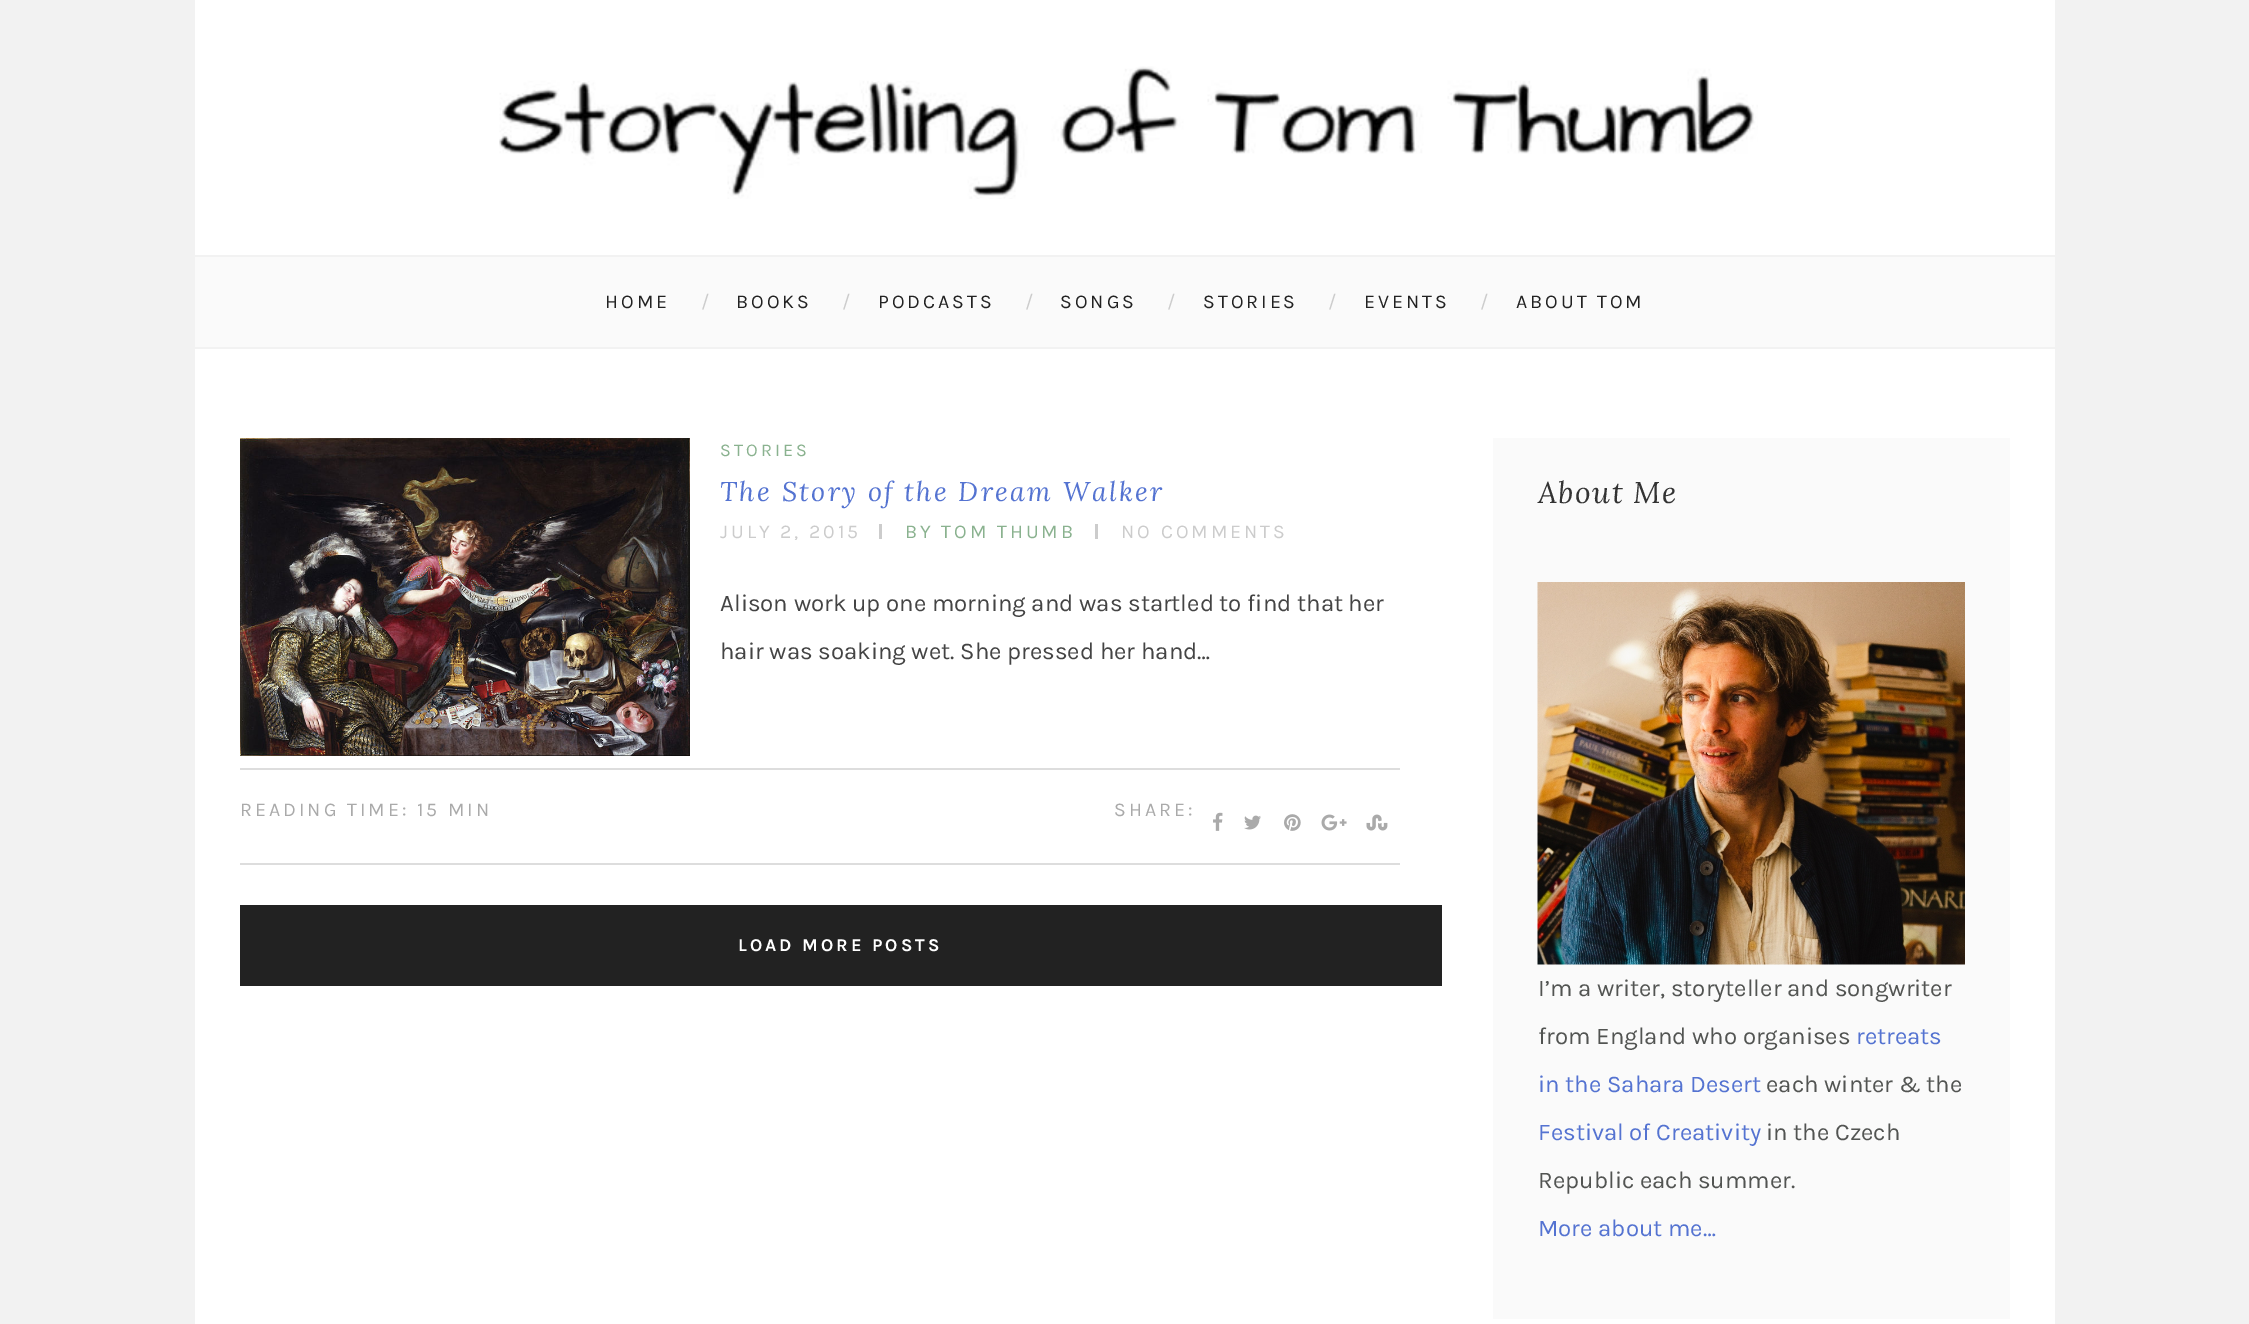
%!PS
<< /PageSize [2249 1324] >> setpagedevice
/rgb { 3 { 255 div 3 1 roll } repeat setrgbcolor } def
/font { [ exch dup neg 0 0 3 -1 roll 0 0 ] selectfont } def
/text { moveto show } def
/picture { 5 dict begin { /h /w /y /x /name } { exch def } forall
  gsave x y translate w h scale
  w h 8 [w 0 0 h 0 0] name (r) file false 3 colorimage grestore end } def
0 1324 translate 1 -1 scale
4 setmiterlimit
242 242 242 rgb
0 0 2249 1324 rectfill
255 255 255 rgb
195 0 1860 255 rectfill
(img_01.rgb) 499 66 1259 133 picture
250 250 250 rgb
195 257 1860 90 rectfill
255 255 255 rgb
195 349 1860 975 rectfill
(img_02.rgb) 240 438 450 318 picture
204 204 204 rgb
879 524 3 15 rectfill
1095 524 3 15 rectfill
221 221 221 rgb
240 768 1160 2 rectfill
240 863 1160 2 rectfill
(img_03.rgb) 1213 812 10 19 picture
(img_04.rgb) 1244 815 17 15 picture
(img_05.rgb) 1284 814 17 17 picture
(img_06.rgb) 1321 814 26 17 picture
(img_07.rgb) 1366 814 22 17 picture
34 34 34 rgb
240 905 1202 81 rectfill
250 250 250 rgb
1493 438 517 881 rectfill
(img_08.rgb) 1537 582 428 383 picture
/Karla-Regular 19.5 font
34 34 34 rgb
605 308 moveto 3 0 (HOME) ashow
204 204 204 rgb
701 308 moveto 3 0 (/) ashow
34 34 34 rgb
736 308 moveto 3 0 (BOOKS) ashow
204 204 204 rgb
842 308 moveto 3 0 (/) ashow
34 34 34 rgb
878 308 moveto 3 0 (PODCASTS) ashow
204 204 204 rgb
1025 308 moveto 3 0 (/) ashow
34 34 34 rgb
1060 308 moveto 3 0 (SONGS) ashow
204 204 204 rgb
1167 308 moveto 3 0 (/) ashow
34 34 34 rgb
1203 308 moveto 3 0 (STORIES) ashow
204 204 204 rgb
1328 308 moveto 3 0 (/) ashow
34 34 34 rgb
1364 308 moveto 3 0 (EVENTS) ashow
204 204 204 rgb
1480 308 moveto 3 0 (/) ashow
34 34 34 rgb
1516 308 moveto 3 0 (ABOUT TOM) ashow
/Karla-Regular 18 font
138 178 143 rgb
720 456 moveto 3 0 (STORIES) ashow
/Lora-Italic 27 font
84 115 209 rgb
720 501 moveto 2.25 0 (The Story of the Dream Walker) ashow
/Karla-Regular 19.5 font
204 204 204 rgb
720 538 moveto 3 0 (JULY 2, 2015) ashow
138 178 143 rgb
905 538 moveto 3 0 (BY TOM THUMB) ashow
204 204 204 rgb
1121 538 moveto 3 0 (NO COMMENTS) ashow
/Karla-Regular 24 font
68 68 68 rgb
(Alison work up one morning and was startled to find that her) 720 611 text
(hair was soaking wet. She pressed her hand…) 720 659 text
/Karla-Regular 19.5 font
170 170 170 rgb
240 816 moveto 3 0 (READING TIME: 15 MIN) ashow
1114 816 moveto 3 0 (SHARE:) ashow
/Karla-Bold 18 font
255 255 255 rgb
738 951 moveto 3 0 (LOAD MORE POSTS) ashow
/Lora-Italic 30 font
51 51 51 rgb
1538 503 moveto 1.5 0 (About Me) ashow
/Karla-Regular 24 font
82 84 82 rgb
(I’m a writer, storyteller and songwriter) 1538 996 text
(from England who organises) 1538 1044 text
84 115 209 rgb
(retreats) 1856 1044 text
(in the Sahara Desert) 1538 1092 text
82 84 82 rgb
(each winter & the) 1766 1092 text
84 115 209 rgb
(Festival of Creativity) 1538 1140 text
82 84 82 rgb
(in the Czech) 1766 1140 text
(Republic each summer.) 1538 1188 text
84 115 209 rgb
(More about me…) 1538 1236 text
showpage
